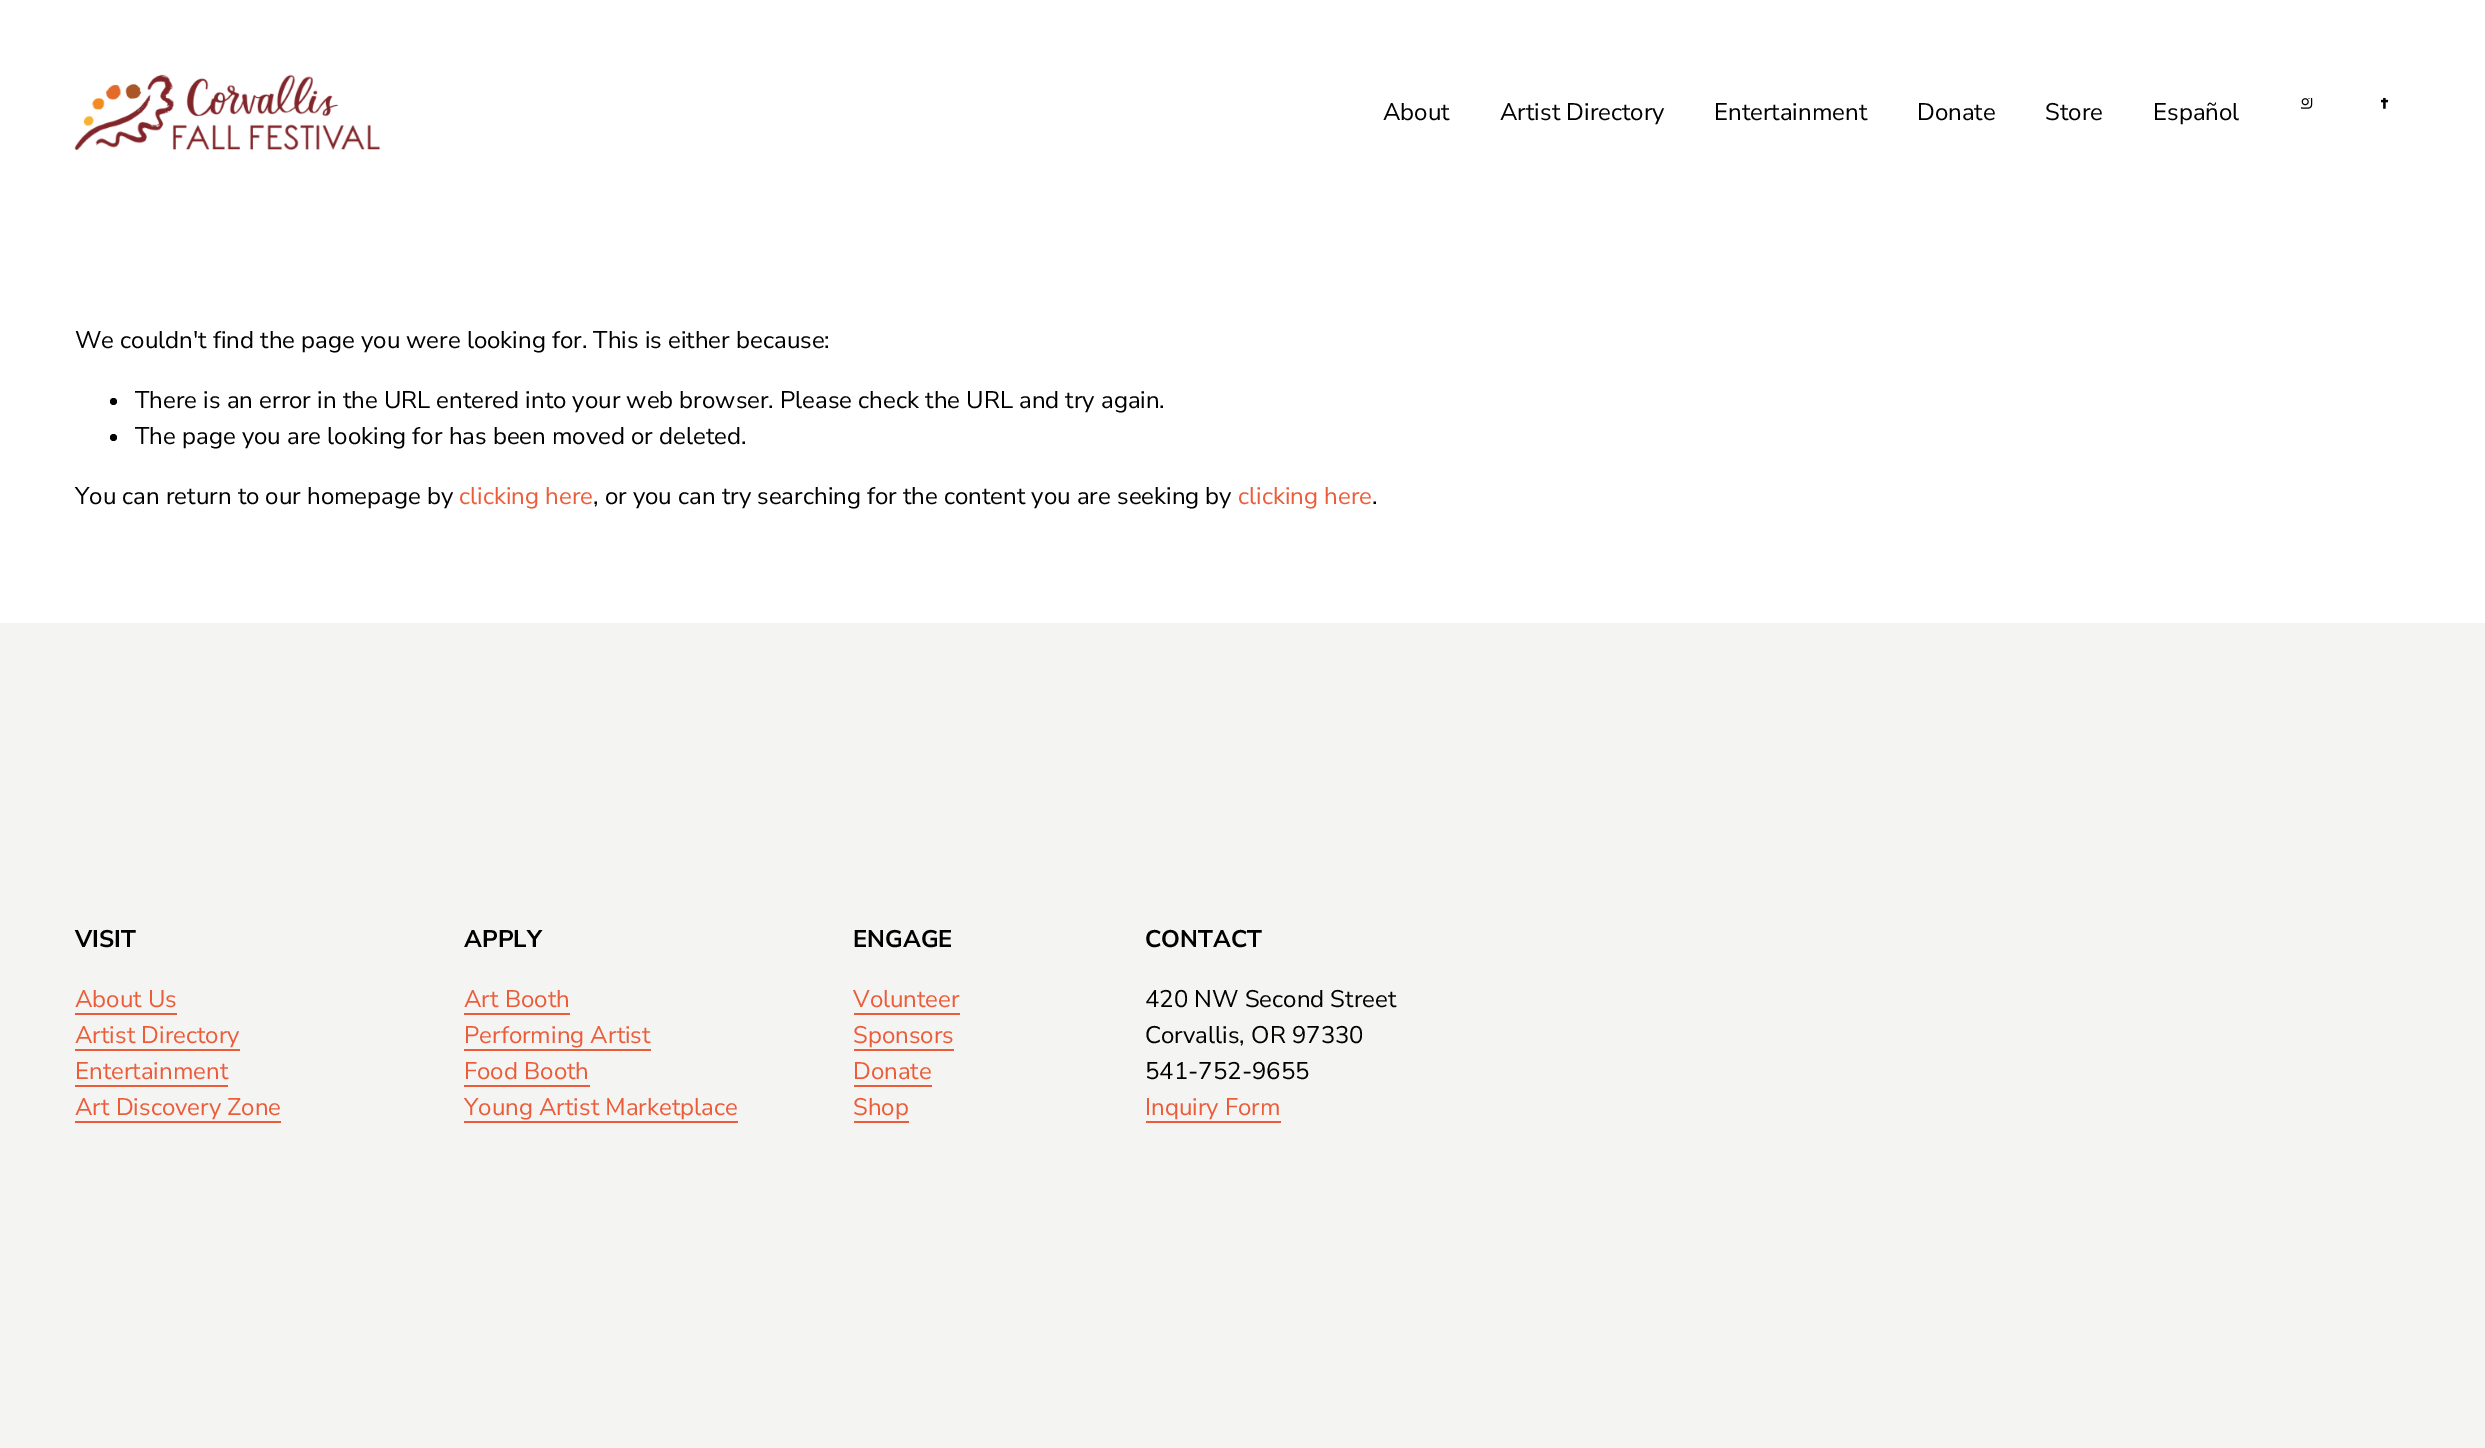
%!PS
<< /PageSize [2485 1448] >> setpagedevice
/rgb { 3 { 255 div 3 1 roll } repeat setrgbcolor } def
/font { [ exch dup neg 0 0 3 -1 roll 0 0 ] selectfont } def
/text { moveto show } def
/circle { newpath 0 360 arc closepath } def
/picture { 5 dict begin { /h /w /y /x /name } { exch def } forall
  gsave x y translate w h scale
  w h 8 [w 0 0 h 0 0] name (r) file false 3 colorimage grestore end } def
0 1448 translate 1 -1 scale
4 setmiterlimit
255 255 255 rgb
0 0 2485 1448 rectfill
(img_01.rgb) 74 74 306 76 picture
(img_02.rgb) 2301 98 12 11 picture
(img_03.rgb) 2381 98 8 11 picture
0 0 0 rgb
113.5 401.5 3.5 circle fill
113.5 437.5 3.5 circle fill
244 244 243 rgb
0 623 2485 825 rectfill
236 92 57 rgb
75 1013 102 2 rectfill
75 1049 165 2 rectfill
75 1085 153 2 rectfill
75 1121 206 2 rectfill
464 1013 106 2 rectfill
464 1049 187 2 rectfill
464 1085 126 2 rectfill
464 1121 274 2 rectfill
854 1013 106 2 rectfill
854 1049 100 2 rectfill
854 1085 78 2 rectfill
854 1121 55 2 rectfill
1146 1121 135 2 rectfill
/NunitoSans-Regular 24 font
0 0 0 rgb
(About) 1383 120 text
(Artist Directory) 1500 120 text
(Entertainment) 1714 120 text
(Donate) 1917 120 text
(Store) 2045 120 text
(Español) 2153 120 text
(We couldn't find the page you were looking for. This is either because:) 75 348 text
(There is an error in the URL entered into your web browser. Please check the URL and try again.) 135 408 text
(The page you are looking for has been moved or deleted.) 135 444 text
(You can return to our homepage by) 75 504 text
236 92 57 rgb
(clicking here) 459 504 text
0 0 0 rgb
(, or you can try searching for the content you are seeking by) 593 504 text
236 92 57 rgb
(clicking here) 1238 504 text
0 0 0 rgb
(.) 1372 504 text
/NunitoSans-Bold 24 font
(VISIT) 75 947 text
/NunitoSans-Regular 24 font
236 92 57 rgb
(About Us) 75 1007 text
(Artist Directory) 75 1043 text
(Entertainment) 75 1079 text
(Art Discovery Zone) 75 1115 text
/NunitoSans-Bold 24 font
0 0 0 rgb
(APPLY) 464 947 text
/NunitoSans-Regular 24 font
236 92 57 rgb
(Art Booth) 464 1007 text
(Performing Artist) 464 1043 text
(Food Booth) 464 1079 text
(Young Artist Marketplace) 464 1115 text
/NunitoSans-Bold 24 font
0 0 0 rgb
(ENGAGE) 853 947 text
/NunitoSans-Regular 24 font
236 92 57 rgb
(Volunteer) 853 1007 text
(Sponsors) 853 1043 text
(Donate) 853 1079 text
(Shop) 853 1115 text
/NunitoSans-Bold 24 font
0 0 0 rgb
(CONTACT) 1145 947 text
/NunitoSans-Regular 24 font
(420 NW Second Street) 1145 1007 text
(Corvallis, OR 97330) 1145 1043 text
(541-752-9655) 1145 1079 text
236 92 57 rgb
(Inquiry Form) 1145 1115 text
showpage
